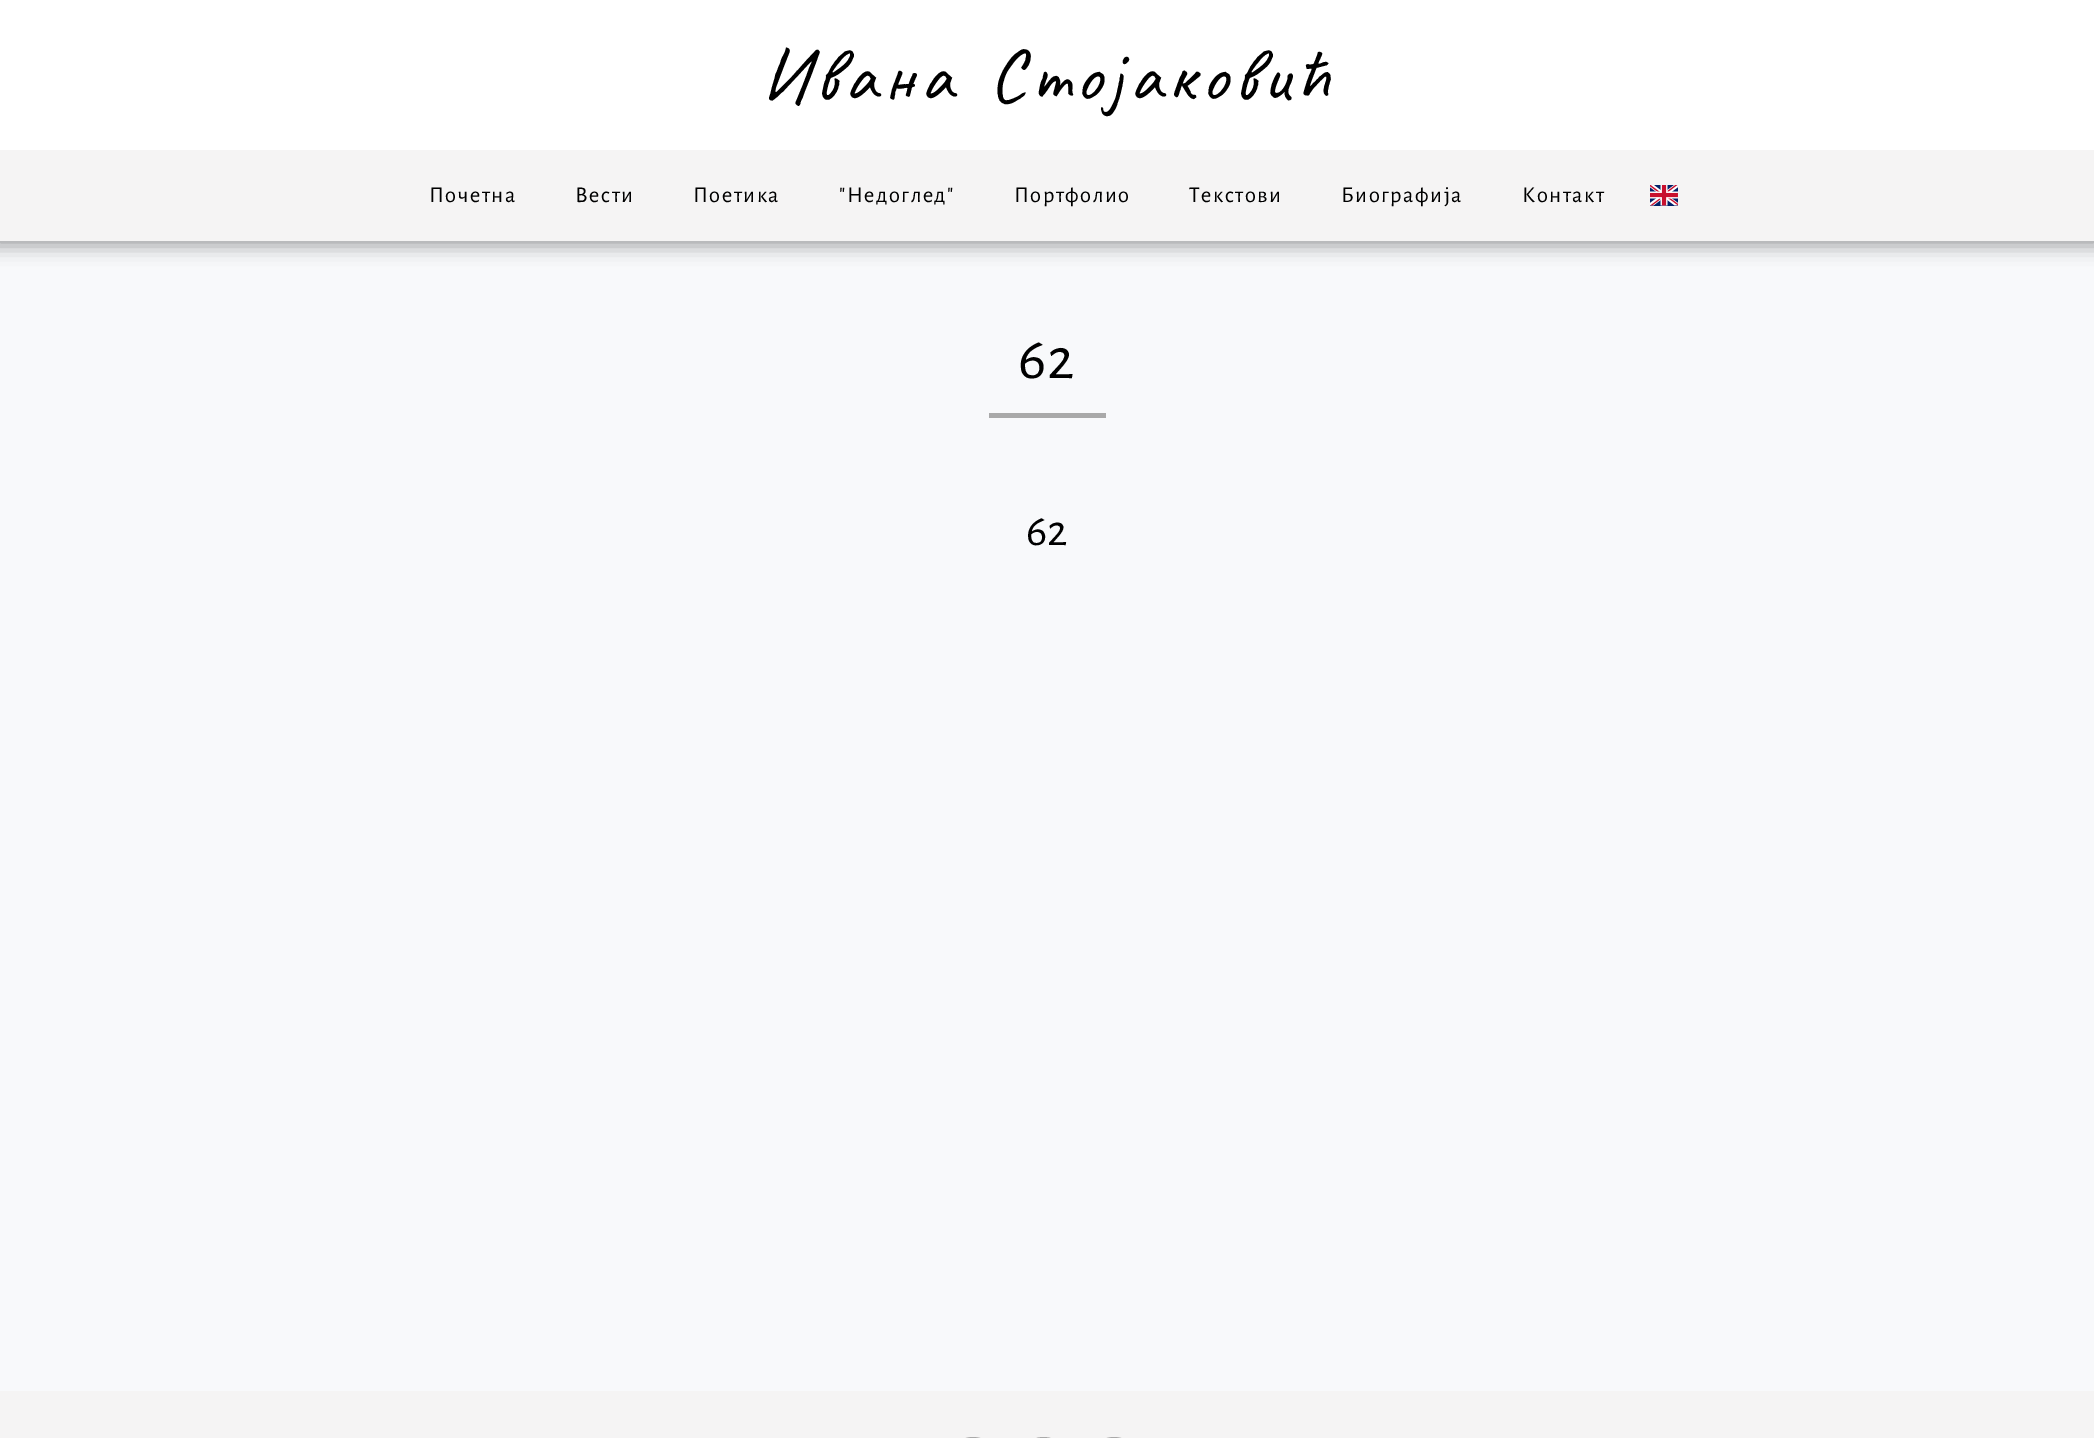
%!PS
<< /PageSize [2094 1438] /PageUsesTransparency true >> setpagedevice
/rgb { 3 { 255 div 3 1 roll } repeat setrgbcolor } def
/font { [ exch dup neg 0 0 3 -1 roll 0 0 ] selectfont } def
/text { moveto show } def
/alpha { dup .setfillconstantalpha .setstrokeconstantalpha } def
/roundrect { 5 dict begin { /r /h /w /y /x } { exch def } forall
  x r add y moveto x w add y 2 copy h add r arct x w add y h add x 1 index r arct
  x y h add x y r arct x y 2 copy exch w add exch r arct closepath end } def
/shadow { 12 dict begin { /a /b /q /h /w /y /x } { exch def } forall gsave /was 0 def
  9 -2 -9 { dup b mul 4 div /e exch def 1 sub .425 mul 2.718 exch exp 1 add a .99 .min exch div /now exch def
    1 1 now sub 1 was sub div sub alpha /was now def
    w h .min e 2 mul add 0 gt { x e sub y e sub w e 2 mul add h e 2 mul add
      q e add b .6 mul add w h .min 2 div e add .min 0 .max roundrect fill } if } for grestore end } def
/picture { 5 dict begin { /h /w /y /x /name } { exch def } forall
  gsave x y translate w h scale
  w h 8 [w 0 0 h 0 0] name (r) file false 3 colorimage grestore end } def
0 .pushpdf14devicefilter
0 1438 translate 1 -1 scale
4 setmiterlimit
248 249 251 rgb
0 0 2094 1438 rectfill
0 0 0 rgb
-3 0 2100 246 0 9 0.35 shadow
245 244 244 rgb
0 150 2094 91 rectfill
255 255 255 rgb
0 0 2094 150 rectfill
(img_01.rgb) 1650 185 28 21 picture
169 169 169 rgb
989 413 117 5 rectfill
245 244 244 rgb
0 1391 2094 47 rectfill
169 169 169 rgb
2 setlinewidth
946 1438 54 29 27 roundrect stroke
1017 1438 53 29 26.5 roundrect stroke
1087 1438 54 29 27 roundrect stroke
/Caveat-Regular 75 font
0 0 0 rgb
762 100 moveto 6 0 32 6 0 (Ивана Стојаковић) awidthshow
/AlegreyaSans-Regular 22.5 font
429 202 moveto 1.5 0 (Почетна) ashow
575 202 moveto 1.5 0 (Вести) ashow
693 202 moveto 1.5 0 (Поетика) ashow
839 202 moveto 1.5 0 ("Недоглед") ashow
1014 202 moveto 1.5 0 (Портфолио) ashow
1189 202 moveto 1.5 0 (Текстови) ashow
1341 202 moveto 1.5 0 (Биографија) ashow
1522 202 moveto 1.5 0 (Контакт) ashow
/AlegreyaSans-Regular 60 font
1018 378 moveto 1 0 (62) ashow
/AlegreyaSans-Regular 45 font
(62) 1026 545 text
.poppdf14devicefilter showpage
